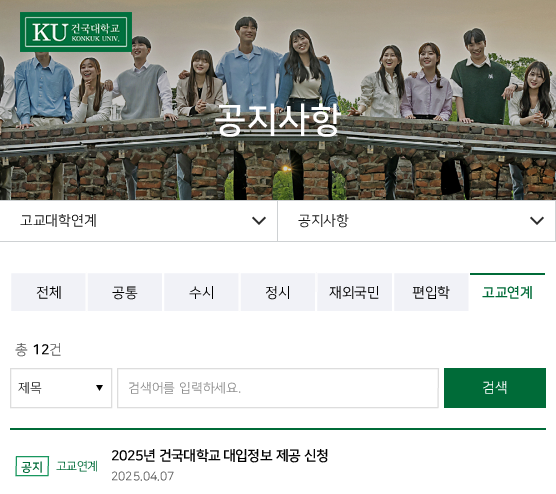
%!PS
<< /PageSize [556 494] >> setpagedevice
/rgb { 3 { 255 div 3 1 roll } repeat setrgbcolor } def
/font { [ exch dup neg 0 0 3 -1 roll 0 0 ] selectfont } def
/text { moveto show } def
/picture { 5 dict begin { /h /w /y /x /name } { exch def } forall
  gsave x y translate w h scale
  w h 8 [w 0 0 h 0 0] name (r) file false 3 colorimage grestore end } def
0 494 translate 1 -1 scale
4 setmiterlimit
255 255 255 rgb
0 0 556 494 rectfill
(img_02.rgb) 0 0 556 200 picture
(img_01.rgb) 20 12 112 40 picture
206 209 211 rgb
0 200 556 1 rectfill
0 241 556 1 rectfill
(img_03.rgb) 252 216 14 9 picture
277 201 1 40 rectfill
(img_03.rgb) 530 216 14 9 picture
555 201 1 40 rectfill
241 242 247 rgb
11 272 76 40 rectfill
255 255 255 rgb
10.5 272.5 moveto 75.5 0 rlineto 0 39 rlineto -75.5 0 rlineto closepath stroke
241 242 247 rgb
87 273 75 38 rectfill
255 255 255 rgb
87 272.5 moveto 75.5 0 rlineto 0 39 rlineto -75.5 0 rlineto closepath stroke
241 242 247 rgb
164 272 76 40 rectfill
255 255 255 rgb
163.5 272.5 moveto 75.5 0 rlineto 0 39 rlineto -75.5 0 rlineto closepath stroke
241 242 247 rgb
240 273 76 38 rectfill
255 255 255 rgb
240 272.5 moveto 76 0 rlineto -0.5 39 rlineto -75.5 0 rlineto closepath stroke
241 242 247 rgb
316 272 76 39 rectfill
255 255 255 rgb
317 272.5 moveto 75.5 0 rlineto 0 39 rlineto -76 0 rlineto closepath stroke
241 242 247 rgb
394 273 75 38 rectfill
255 255 255 rgb
393.5 272.5 moveto 75.5 0 rlineto 0 39 rlineto -75.5 0 rlineto closepath stroke
0 107 56 rgb
470 273 75 2 rectfill
(img_04.rgb) 96 385 7 6 picture
221 221 221 rgb
10.5 368.5 moveto 101 0 rlineto 0 39 rlineto -101 0 rlineto closepath stroke
117.5 368.5 moveto 321 0 rlineto -0.5 39 rlineto -320.5 0 rlineto closepath stroke
0 107 56 rgb
444 368 102 40 rectfill
10 428 536 2 rectfill
24 151 94 rgb
16.5 456.5 moveto 32 0 rlineto -0.5 19 rlineto -32 0 rlineto closepath stroke
/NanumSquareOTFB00-Bold 35 font
255 255 255 rgb
(공지사항) 214 131 text
/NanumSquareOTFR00-Regular 14 font
22 22 22 rgb
(고교대학연계) 20 225 text
(공지사항) 298 225 text
0 0 0 rgb
(전체) 36 297 text
(공통) 112 297 text
(수시) 189 297 text
(정시) 265 297 text
(재외국민) 329 297 text
(편입학) 412 297 text
/NanumSquareOTFB00-Bold 14 font
0 107 56 rgb
(고교연계) 482 297 text
/NanumSquareOTFR00-Regular 14 font
85 85 85 rgb
(총) 15 354 text
/NanumSquareOTFB00-Bold 14 font
0 0 0 rgb
(12) 32 354 text
/NanumSquareOTFR00-Regular 14 font
85 85 85 rgb
(건) 49 354 text
/NanumSquareOTFR00-Regular 13 font
45 45 45 rgb
(제목) 18 392 text
141 141 141 rgb
(검색어를) 128 392 text
(입력하세요.) 179 392 text
/NanumSquareOTFR00-Regular 14 font
255 255 255 rgb
(검색) 482 392 text
/NanumSquareOTFB00-Bold 14 font
0 0 0 rgb
111 460 moveto -0.5 0 (2025년) ashow
159 460 moveto -0.5 0 (건국대학교) ashow
223 460 moveto -0.5 0 (대입정보) ashow
276 460 moveto -0.5 0 (제공) ashow
304 460 moveto -0.5 0 (신청) ashow
/NanumSquareOTFB00-Bold 12 font
0 107 56 rgb
(공지) 21 471 text
/NanumSquareOTFR00-Regular 12 font
56 470 moveto -0.5 0 (고교연계) ashow
85 85 85 rgb
(2025.04.07) 111 480 text
showpage
